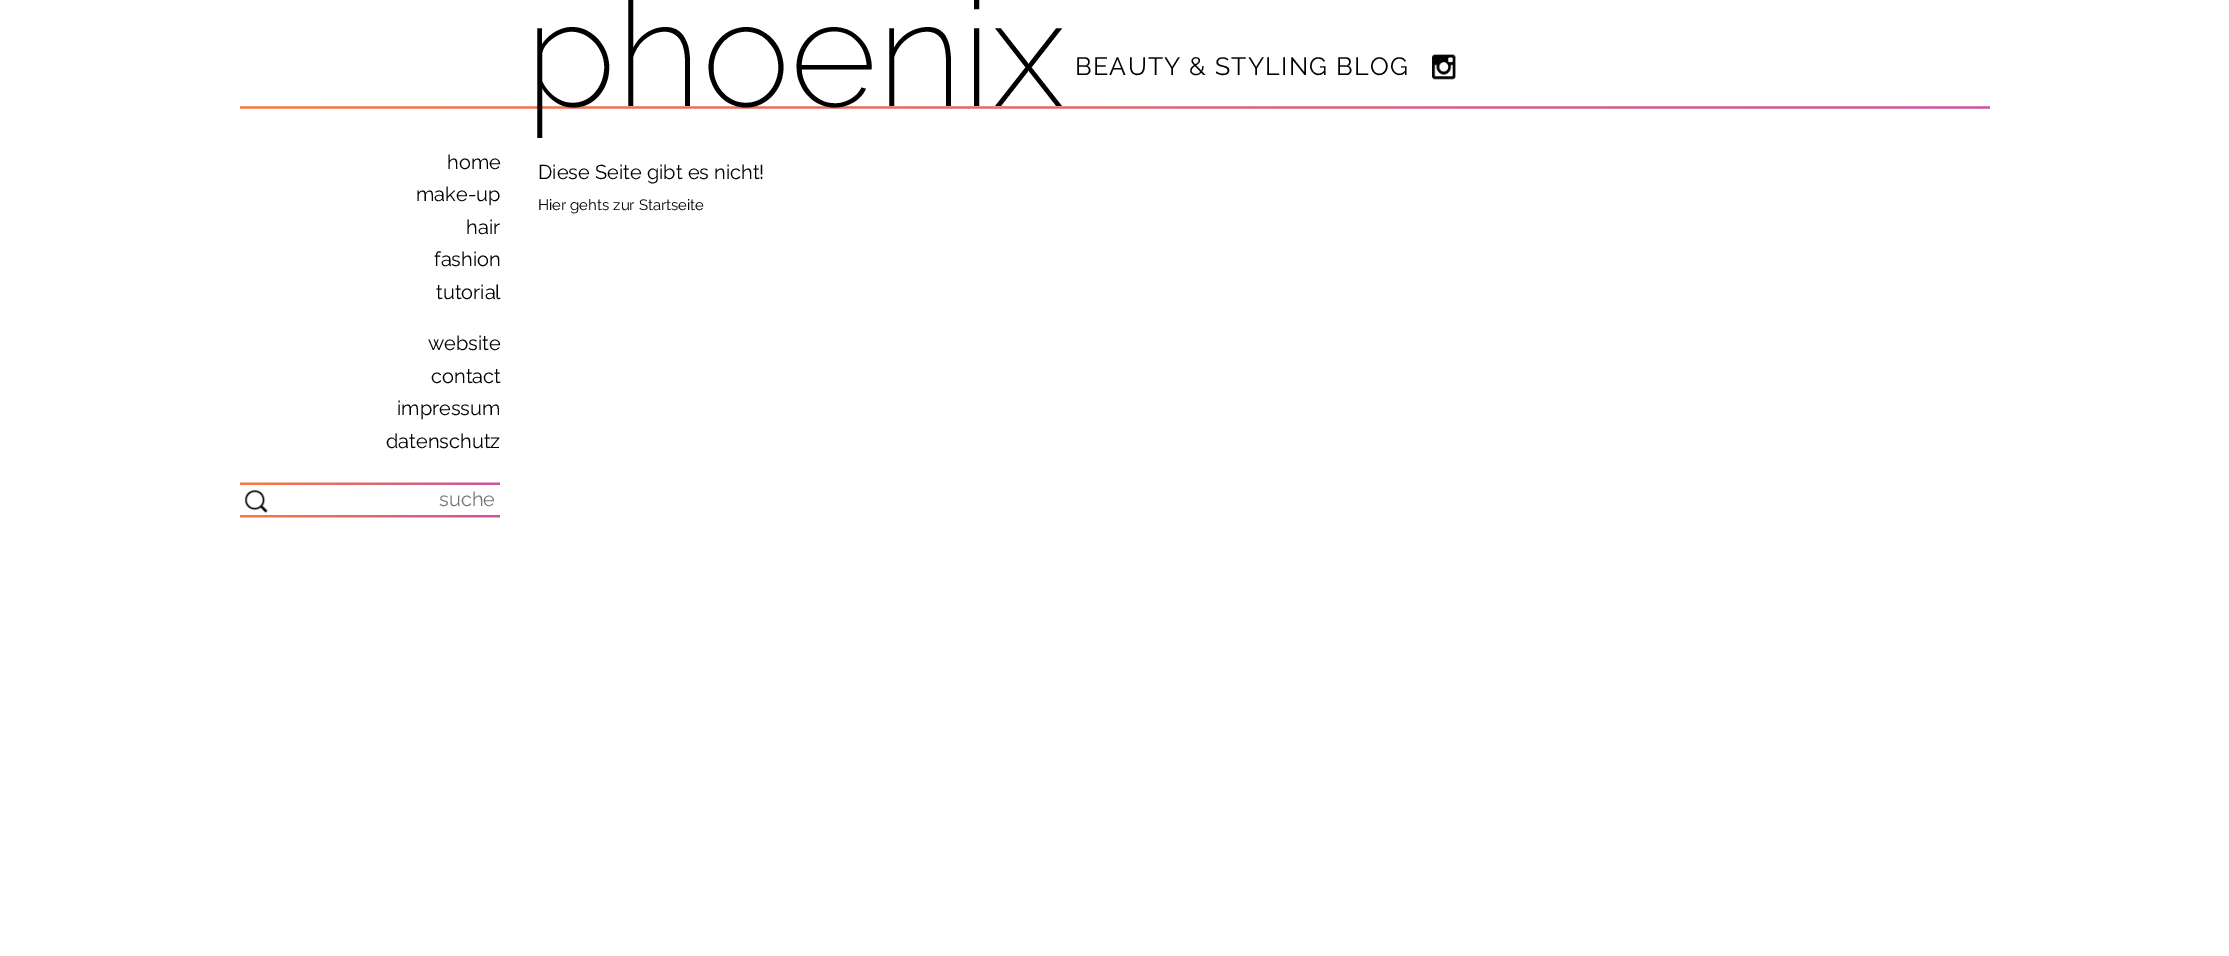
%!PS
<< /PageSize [2229 956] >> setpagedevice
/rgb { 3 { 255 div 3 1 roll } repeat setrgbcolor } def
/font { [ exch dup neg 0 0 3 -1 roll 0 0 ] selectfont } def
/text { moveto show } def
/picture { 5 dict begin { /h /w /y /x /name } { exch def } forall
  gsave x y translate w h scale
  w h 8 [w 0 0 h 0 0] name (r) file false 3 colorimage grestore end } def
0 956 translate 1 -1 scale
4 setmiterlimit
255 255 255 rgb
0 0 2229 956 rectfill
(img_01.rgb) 240 106 1750 3 picture
(img_02.rgb) 1432 54 24 26 picture
(img_03.rgb) 240 482 260 36 picture
(img_04.rgb) 244 490 24 23 picture
/Raleway-Thin 150 font
0 0 0 rgb
(phoenix) 525 106 text
/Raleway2-Thin 25 font
1075 75 moveto 1.25 0 (BEAUTY & STYLING BLOG) ashow
/Raleway2-Thin 20 font
(home) 447 169 text
(make-up) 416 201 text
(hair) 466 234 text
(fashion) 434 266 text
(tutorial) 436 299 text
(website) 428 350 text
(contact) 431 383 text
(impressum) 397 415 text
(datenschutz) 386 448 text
117 117 117 rgb
(suche) 439 506 text
0 0 0 rgb
(Diese Seite gibt es nicht!) 538 179 text
/Raleway2-Thin 15 font
(Hier gehts zur Startseite) 538 210 text
showpage
